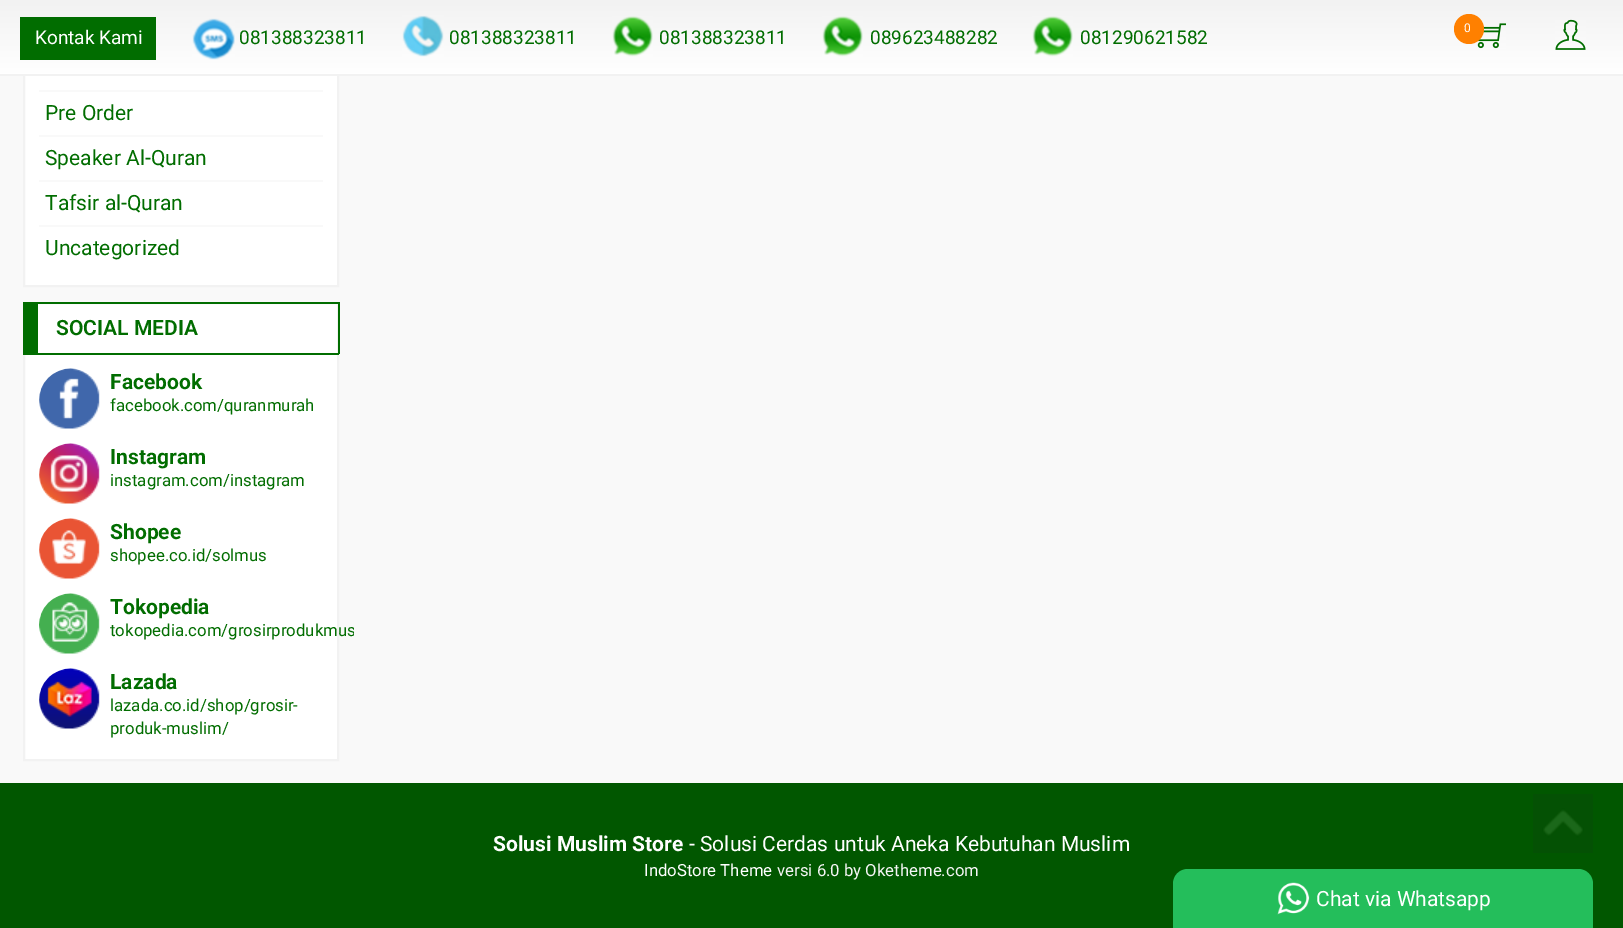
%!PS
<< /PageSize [1623 928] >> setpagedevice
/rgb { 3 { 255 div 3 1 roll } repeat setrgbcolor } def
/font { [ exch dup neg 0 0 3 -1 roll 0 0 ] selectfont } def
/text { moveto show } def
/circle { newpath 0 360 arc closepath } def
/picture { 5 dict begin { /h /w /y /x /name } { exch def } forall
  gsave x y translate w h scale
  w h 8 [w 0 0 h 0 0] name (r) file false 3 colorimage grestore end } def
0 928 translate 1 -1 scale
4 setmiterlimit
249 249 249 rgb
0 0 1623 928 rectfill
255 255 255 rgb
25 76 312 209 rectfill
242 242 242 rgb
2 setlinewidth
24 -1 314 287 rectstroke
gsave 0 0 moveto 1623 0 rlineto 0 74 rlineto -1623 0 rlineto closepath clip newpath
<< /ShadingType 2 /ColorSpace /DeviceRGB /Coords [812 0 812 74] /Extend [true true] /Function << /FunctionType 2 /Domain [0 1] /C0 [0.949 0.949 0.949] /C1 [1 1 1] /N 1 >> >> shfill grestore
0 74 1623 2 rectfill
(img_01.rgb) 1477 23 29 26 picture
255 128 0 rgb
1469 29 15 circle fill
(img_02.rgb) 1555 19 31 31 picture
1 109 0 rgb
20 17 136 43 rectfill
(img_03.rgb) 192 18 43 42 picture
(img_04.rgb) 402 15 42 42 picture
(img_05.rgb) 612 16 41 41 picture
(img_05.rgb) 822 16 41 41 picture
(img_05.rgb) 1032 16 41 41 picture
249 249 249 rgb
39 90 284 2 rectfill
39 135 284 2 rectfill
39 180 284 2 rectfill
39 225 284 2 rectfill
255 255 255 rgb
24 303 moveto 314 0 rlineto 0 457 rlineto -314 0 rlineto closepath gsave fill grestore
242 242 242 rgb
stroke
1 109 0 rgb
38 302 301 2 rectfill
338 302 2 52 rectfill
23 353 316 2 rectfill
23 302 15 51 rectfill
(img_06.rgb) 39 368 61 61 picture
(img_07.rgb) 39 443 61 61 picture
(img_08.rgb) 39 518 61 61 picture
(img_09.rgb) 39 593 61 61 picture
(img_10.rgb) 39 668 61 61 picture
1 87 0 rgb
0 783 1623 145 rectfill
(img_11.rgb) 1533 794 60 59 picture
36 190 91 rgb
1188 869 moveto 390 0 rlineto 8.5 0 15 6.5 15 15 rcurveto 0 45 rlineto -420 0 rlineto 0 -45 rlineto 0 -8.5 6.5 -15 15 -15 rcurveto closepath fill
(img_12.rgb) 1277 882 33 33 picture
/Roboto-Regular 12 font
255 255 255 rgb
(0) 1464 32 text
/Roboto-Regular 19 font
(Kontak Kami) 35 44 text
1 109 0 rgb
(081388323811) 239 44 text
(081388323811) 449 44 text
(081388323811) 659 44 text
(089623488282) 870 44 text
(081290621582) 1080 44 text
/Roboto-Regular 21 font
(Pre Order) 45 120 text
(Speaker Al-Quran) 45 165 text
(Tafsir al-Quran) 45 210 text
(Uncategorized) 45 255 text
/Roboto-SemiBold 21 font
(SOCIAL MEDIA) 56 335 text
/Roboto-Bold 21 font
(Facebook) 110 389 text
/Roboto-Regular 16.75 font
(facebook.com/quranmurah) 110 411 text
/Roboto-Bold 21 font
(Instagram) 110 464 text
/Roboto-Regular 16.75 font
(instagram.com/instagram) 110 486 text
/Roboto-Bold 21 font
(Shopee) 110 539 text
/Roboto-Regular 16.75 font
(shopee.co.id/solmus) 110 561 text
/Roboto-Bold 21 font
(Tokopedia) 110 614 text
gsave
23 0 331 761 rectclip
/Roboto-Regular 16.75 font
(tokopedia.com/grosirprodukmus) 110 636 text
grestore
(Lazada) 110 689 text
/Roboto-Regular 16.75 font
(lazada.co.id/shop/grosir-) 110 711 text
(produk-muslim/) 110 734 text
/Roboto-Bold 21 font
255 255 255 rgb
(Solusi Muslim Store) 493 851 text
/Roboto-Regular 21 font
(- Solusi Cerdas untuk Aneka Kebutuhan Muslim) 689 851 text
/Roboto-Regular 16.75 font
(IndoStore Theme) 644 876 text
245 245 245 rgb
(versi 6.0 by Oketheme.com) 777 876 text
/Roboto-Regular 21 font
255 255 255 rgb
(Chat via Whatsapp) 1316 906 text
showpage
